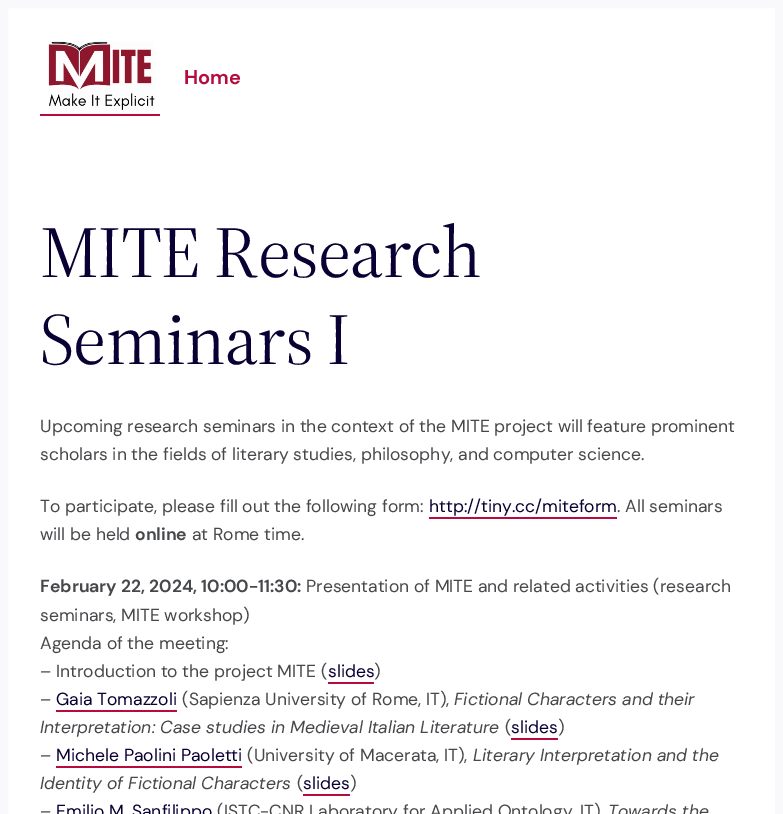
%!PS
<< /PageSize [783 814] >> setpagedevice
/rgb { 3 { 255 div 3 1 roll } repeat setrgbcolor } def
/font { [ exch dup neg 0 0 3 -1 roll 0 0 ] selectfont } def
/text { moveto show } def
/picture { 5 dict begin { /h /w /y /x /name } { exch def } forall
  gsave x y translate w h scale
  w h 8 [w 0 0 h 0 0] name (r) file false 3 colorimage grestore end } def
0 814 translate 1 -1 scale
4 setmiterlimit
255 255 255 rgb
0 0 783 814 rectfill
249 249 251 rgb
8 setlinewidth
4 4 775 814 rectstroke
181 11 62 rgb
40 114 120 2 rectfill
(img_01.rgb) 48 41 107 73 picture
429 517 188 2 rectfill
328 682 46 2 rectfill
56 710 121 2 rectfill
511 738 47 2 rectfill
56 766 186 2 rectfill
303 794 47 2 rectfill
/DMSans-Bold 20 font
(Home) 184 84 text
/SourceSerif4-Regular 72.75 font
11 0 51 rgb
40 277 moveto -0.75 0 (MITE Research) ashow
40 364 moveto -0.75 0 (Seminars I) ashow
/DMSans-Regular 17.55 font
71 72 75 rgb
(Upcoming research seminars in the context of the MITE project will feature prominent) 40 432 text
(scholars in the fields of literary studies, philosophy, and computer science.) 40 460 text
(To participate, please fill out the following form:) 40 512 text
11 0 51 rgb
(http://tiny.cc/miteform) 429 512 text
71 72 75 rgb
(. All seminars) 617 512 text
(will be held) 40 540 text
/DMSans-Bold 17.55 font
(online) 135 540 text
/DMSans-Regular 17.55 font
(at Rome time.) 192 540 text
/DMSans-Bold 17.55 font
(February 22, 2024, 10:00-11:30:) 40 592 text
/DMSans-Regular 17.55 font
(Presentation of MITE and related activities \(research) 306 592 text
(seminars, MITE workshop\)) 40 621 text
(Agenda of the meeting:) 40 649 text
(– Introduction to the project MITE \() 40 677 text
11 0 51 rgb
(slides) 328 677 text
71 72 75 rgb
(\)) 374 677 text
(–) 40 705 text
11 0 51 rgb
(Gaia Tomazzoli) 56 705 text
71 72 75 rgb
(\(Sapienza University of Rome, IT\),) 182 705 text
/DMSans-Italic 17.55 font
(Fictional Characters and their) 454 705 text
(Interpretation: Case studies in Medieval Italian Literature) 40 733 text
/DMSans-Regular 17.55 font
(\() 505 733 text
11 0 51 rgb
(slides) 511 733 text
71 72 75 rgb
(\)) 558 733 text
(–) 40 761 text
11 0 51 rgb
(Michele Paolini Paoletti) 56 761 text
71 72 75 rgb
(\(University of Macerata, IT\),) 247 761 text
/DMSans-Italic 17.55 font
(Literary Interpretation and the) 473 761 text
(Identity of Fictional Characters) 40 789 text
/DMSans-Regular 17.55 font
(\() 297 789 text
11 0 51 rgb
(slides) 303 789 text
71 72 75 rgb
(\)) 350 789 text
(–) 40 817 text
11 0 51 rgb
(Emilio M. Sanfilippo) 56 817 text
71 72 75 rgb
(\(ISTC-CNR Laboratory for Applied Ontology, IT\)) 217 817 text
/DMSans-Italic 17.55 font
(Towards the) 608 817 text
showpage
